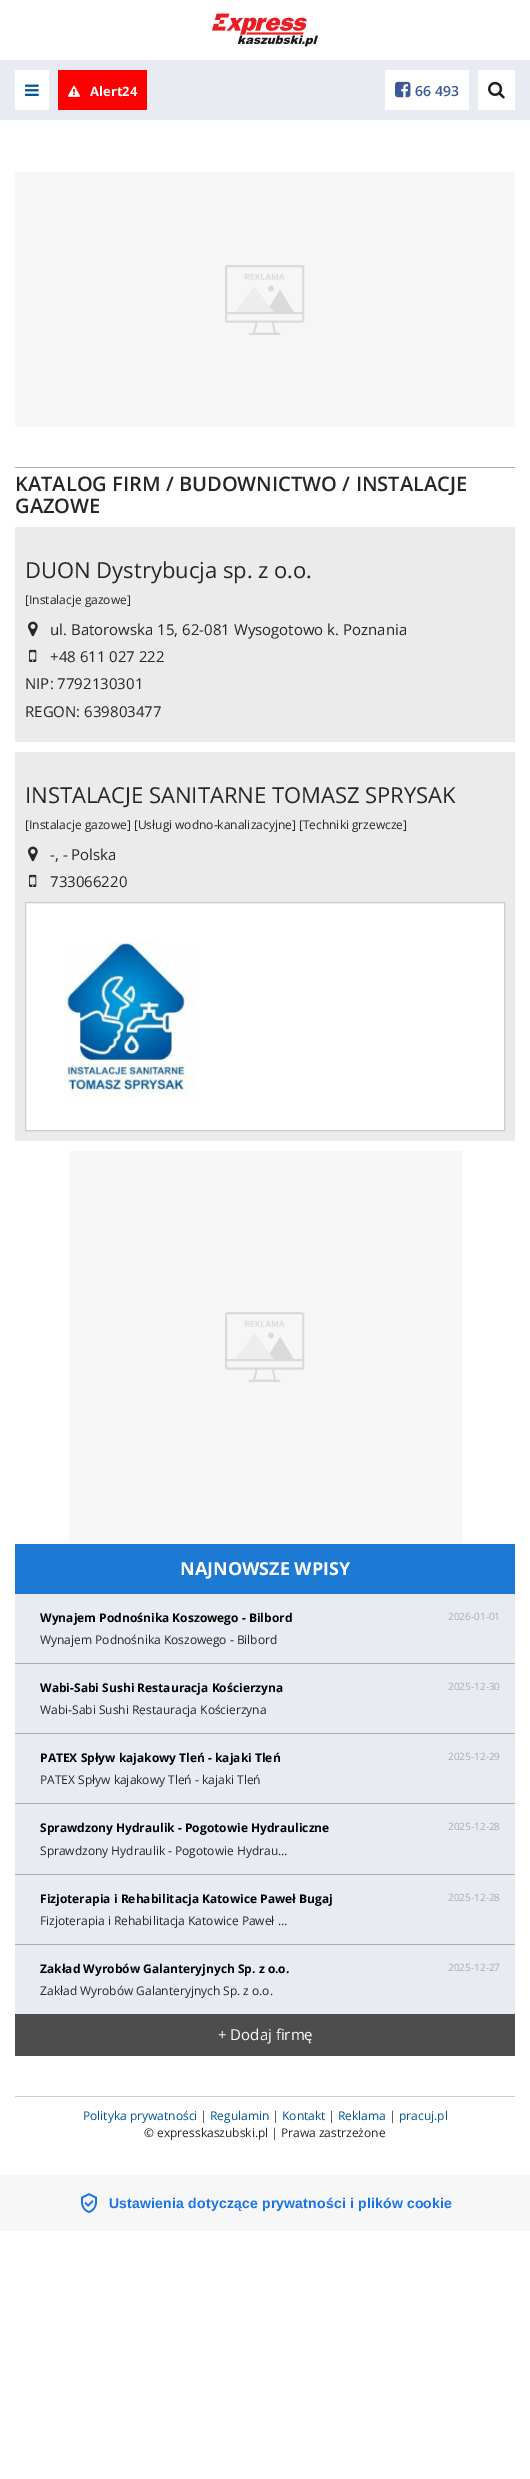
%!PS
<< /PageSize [530 2479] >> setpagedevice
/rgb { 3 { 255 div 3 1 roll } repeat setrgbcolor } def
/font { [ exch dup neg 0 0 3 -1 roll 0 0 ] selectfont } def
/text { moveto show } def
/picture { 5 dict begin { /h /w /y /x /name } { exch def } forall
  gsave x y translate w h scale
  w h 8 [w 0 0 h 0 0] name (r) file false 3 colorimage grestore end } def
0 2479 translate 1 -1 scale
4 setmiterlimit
255 255 255 rgb
0 0 530 2479 rectfill
(img_01.rgb) 212 13 106 34 picture
233 235 242 rgb
0 60 530 60 rectfill
255 255 255 rgb
15 70 34 40 rectfill
(img_02.rgb) 25 84 14 12 picture
255 0 0 rgb
58 70 89 40 rectfill
(img_03.rgb) 68 85 12 12 picture
255 255 255 rgb
385 70 84 40 rectfill
(img_04.rgb) 395 81 16 17 picture
478 70 37 40 rectfill
(img_05.rgb) 488 81 17 18 picture
246 246 246 rgb
15 172 500 255 rectfill
(img_06.rgb) 225 265 80 70 picture
167 173 180 rgb
15 467 500 1 rectfill
235 235 235 rgb
15 527 500 215 rectfill
(img_07.rgb) 28 621 10 16 picture
(img_08.rgb) 29 649 8 13 picture
15 752 500 389 rectfill
(img_07.rgb) 28 846 10 16 picture
(img_08.rgb) 29 874 8 13 picture
255 255 255 rgb
25.5 902.5 moveto 479 0 rlineto 0 228 rlineto -479 0 rlineto closepath gsave fill grestore
204 204 204 rgb
stroke
(img_09.rgb) 64 942 131 160 picture
246 246 246 rgb
69 1151 393 393 rectfill
(img_06.rgb) 225 1312 80 70 picture
28 122 213 rgb
15 1544 500 50 rectfill
233 235 242 rgb
15 1594 500 420 rectfill
172 172 172 rgb
15 1663 500 1 rectfill
15 1733 500 1 rectfill
15 1803 500 1 rectfill
15 1874 500 1 rectfill
15 1944 500 1 rectfill
77 77 77 rgb
15 2014 500 42 rectfill
207 207 207 rgb
15 2096 500 1 rectfill
247 247 247 rgb
0 2175 530 56 rectfill
(img_10.rgb) 81 2193 16 20 picture
/OpenSans-Bold 13 font
255 255 255 rgb
(Alert24) 90 96 text
/OpenSans-SemiBold 14 font
59 89 152 rgb
(66 493) 415 96 text
/OpenSans-SemiBold 20.1 font
38 38 38 rgb
(KATALOG FIRM / BUDOWNICTWO / INSTALACJE) 15 491 text
(GAZOWE) 15 513 text
/OpenSans-Regular 22 font
(DUON Dystrybucja sp. z o.o.) 25 578 text
/OpenSans-Regular 12 font
([Instalacje gazowe]) 25 604 text
/OpenSans-Regular 15 font
(ul. Batorowska 15, 62-081 Wysogotowo k. Poznania) 50 635 text
(+48 611 027 222) 50 662 text
(NIP: 7792130301) 25 689 text
(REGON: 639803477) 25 717 text
/OpenSans-Regular 22 font
(INSTALACJE SANITARNE TOMASZ SPRYSAK) 25 803 text
/OpenSans-Regular 12 font
([Instalacje gazowe] [Usługi wodno-kanalizacyjne] [Techniki grzewcze]) 25 829 text
/OpenSans-Regular 15 font
(-, - Polska) 50 860 text
(733066220) 50 887 text
/OpenSans-Bold 18 font
255 255 255 rgb
(NAJNOWSZE WPISY) 180 1575 text
/OpenSans-Bold 12 font
0 0 0 rgb
(Wynajem Podnośnika Koszowego - Bilbord) 40 1622 text
/OpenSans-Regular 10 font
172 172 172 rgb
(2026-01-01) 448 1620 text
/OpenSans-Regular 12 font
38 38 38 rgb
(Wynajem Podnośnika Koszowego - Bilbord) 40 1644 text
/OpenSans-Bold 12 font
0 0 0 rgb
(Wabi-Sabi Sushi Restauracja Kościerzyna) 40 1692 text
/OpenSans-Regular 10 font
172 172 172 rgb
(2025-12-30) 448 1690 text
/OpenSans-Regular 12 font
38 38 38 rgb
(Wabi-Sabi Sushi Restauracja Kościerzyna) 40 1714 text
/OpenSans-Bold 12 font
0 0 0 rgb
(PATEX Spływ kajakowy Tleń - kajaki Tleń) 40 1762 text
/OpenSans-Regular 10 font
172 172 172 rgb
(2025-12-29) 448 1760 text
/OpenSans-Regular 12 font
38 38 38 rgb
(PATEX Spływ kajakowy Tleń - kajaki Tleń) 40 1784 text
/OpenSans-Bold 12 font
0 0 0 rgb
(Sprawdzony Hydraulik - Pogotowie Hydrauliczne) 40 1832 text
/OpenSans-Regular 10 font
172 172 172 rgb
(2025-12-28) 448 1830 text
/OpenSans-Regular 12 font
38 38 38 rgb
(Sprawdzony Hydraulik - Pogotowie Hydrau…) 40 1855 text
/OpenSans-Bold 12 font
0 0 0 rgb
(Fizjoterapia i Rehabilitacja Katowice Paweł Bugaj) 40 1903 text
/OpenSans-Regular 10 font
172 172 172 rgb
(2025-12-28) 448 1901 text
/OpenSans-Regular 12 font
38 38 38 rgb
(Fizjoterapia i Rehabilitacja Katowice Paweł …) 40 1925 text
/OpenSans-Bold 12 font
0 0 0 rgb
(Zakład Wyrobów Galanteryjnych Sp. z o.o.) 40 1973 text
/OpenSans-Regular 10 font
172 172 172 rgb
(2025-12-27) 448 1971 text
/OpenSans-Regular 12 font
38 38 38 rgb
(Zakład Wyrobów Galanteryjnych Sp. z o.o.) 40 1995 text
/OpenSans-Regular 15 font
255 255 255 rgb
(+ Dodaj firmę) 218 2040 text
/OpenSans-Regular 12 font
0 85 153 rgb
(Polityka prywatności) 83 2120 text
38 38 38 rgb
(|) 200 2120 text
0 85 153 rgb
(Regulamin) 210 2120 text
38 38 38 rgb
(|) 272 2120 text
0 85 153 rgb
(Kontakt) 282 2120 text
38 38 38 rgb
(|) 328 2120 text
0 85 153 rgb
(Reklama) 338 2120 text
38 38 38 rgb
(|) 389 2120 text
0 85 153 rgb
(pracuj.pl) 399 2120 text
38 38 38 rgb
(© expresskaszubski.pl | Prawa zastrzeżone) 144 2137 text
/LiberationSans-Bold 14 font
26 115 232 rgb
109 2208 moveto 0.2 0 (Ustawienia dotyczące prywatności i plików cookie) ashow
showpage
